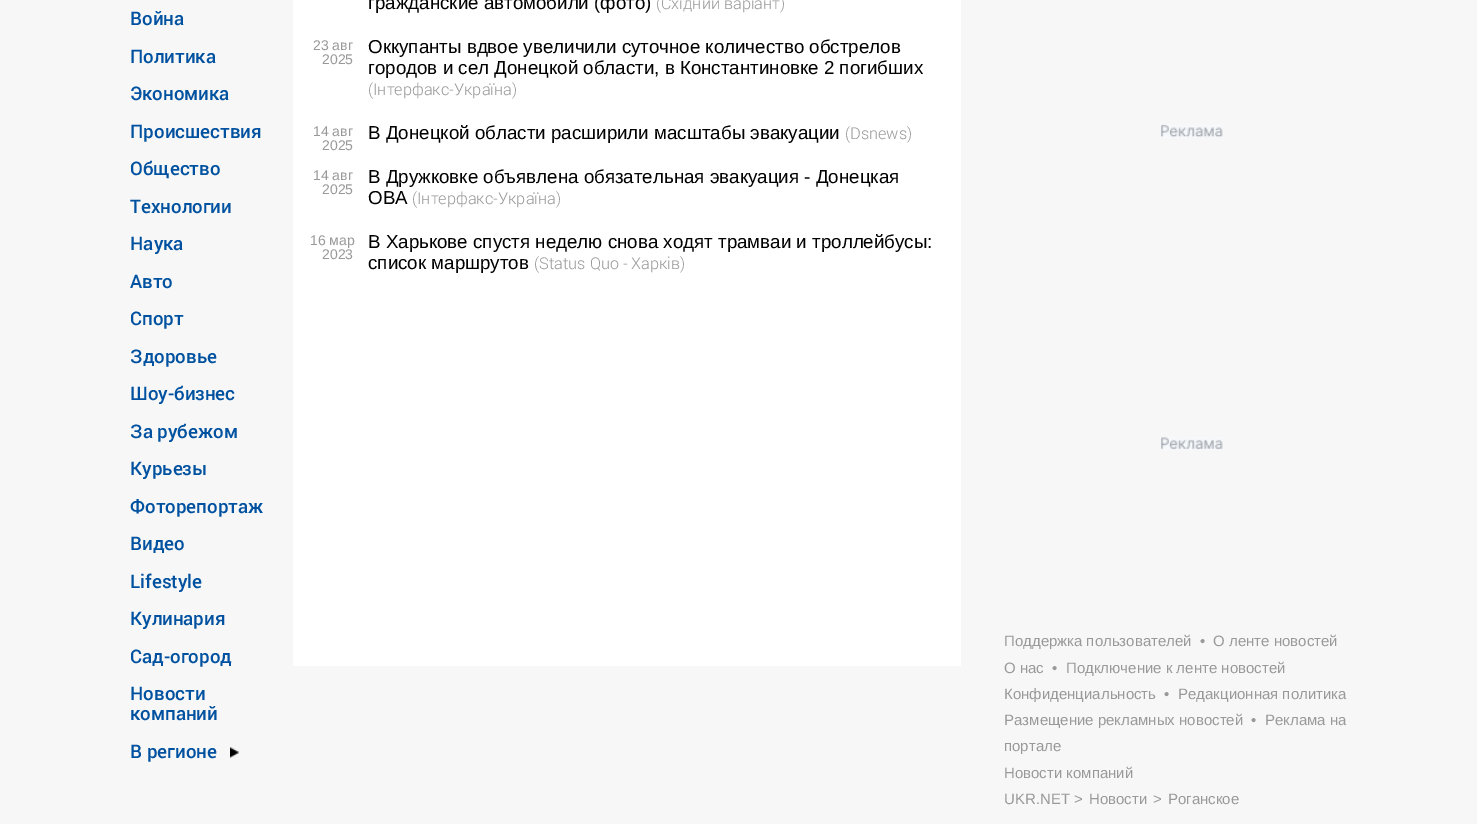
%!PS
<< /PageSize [1477 824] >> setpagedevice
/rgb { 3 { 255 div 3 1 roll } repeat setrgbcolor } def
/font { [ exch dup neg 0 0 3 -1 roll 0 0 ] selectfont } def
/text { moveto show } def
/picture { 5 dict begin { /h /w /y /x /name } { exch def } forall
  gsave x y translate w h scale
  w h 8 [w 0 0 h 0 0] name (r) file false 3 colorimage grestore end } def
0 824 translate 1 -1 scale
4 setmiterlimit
247 247 247 rgb
0 0 1477 824 rectfill
(img_01.rgb) 230 747 9 11 picture
255 255 255 rgb
293 0 668 666 rectfill
(img_02.rgb) 1161 124 62 14 picture
(img_03.rgb) 1161 437 62 13 picture
/Roboto-Medium 18.75 font
0 81 159 rgb
(Война) 130 25 text
(Политика) 130 63 text
(Экономика) 130 100 text
(Происшествия) 130 138 text
(Общество) 130 175 text
(Технологии) 130 213 text
(Наука) 130 250 text
(Авто) 130 288 text
(Спорт) 130 325 text
(Здоровье) 130 363 text
(Шоу-бизнес) 130 400 text
(За рубежом) 130 438 text
(Курьезы) 130 475 text
(Фоторепортаж) 130 513 text
(Видео) 130 550 text
(Lifestyle) 130 588 text
(Кулинария) 130 625 text
(Сад-огород) 130 663 text
(Новости) 130 700 text
(компаний) 130 720 text
(В регионе) 130 758 text
/LiberationSans-Regular 18.75 font
0 0 0 rgb
(гражданские автомобили \(фото\)) 368 9 text
/Roboto-Light 16.25 font
153 153 153 rgb
(\(Східний варіант\)) 656 9 text
/LiberationSans-Regular 14 font
(23 авг) 313 50 text
(2025) 322 64 text
/LiberationSans-Regular 18.75 font
0 0 0 rgb
(Оккупанты вдвое увеличили суточное количество обстрелов) 368 53 text
(городов и сел Донецкой области, в Константиновке 2 погибших) 368 74 text
/Roboto-Light 16.25 font
153 153 153 rgb
(\(Інтерфакс-Україна\)) 368 95 text
/LiberationSans-Regular 14 font
(14 авг) 313 136 text
(2025) 322 150 text
/LiberationSans-Regular 18.75 font
0 0 0 rgb
(В Донецкой области расширили масштабы эвакуации) 368 139 text
/Roboto-Light 16.25 font
153 153 153 rgb
(\(Dsnews\)) 845 139 text
/LiberationSans-Regular 14 font
(14 авг) 313 180 text
(2025) 322 194 text
/LiberationSans-Regular 18.75 font
0 0 0 rgb
(В Дружковке объявлена обязательная эвакуация - Донецкая) 368 183 text
(ОВА) 368 204 text
/Roboto-Light 16.25 font
153 153 153 rgb
(\(Інтерфакс-Україна\)) 412 204 text
/LiberationSans-Regular 14 font
(16 мар) 310 245 text
(2023) 322 259 text
/LiberationSans-Regular 18.75 font
0 0 0 rgb
(В Харькове спустя неделю снова ходят трамваи и троллейбусы:) 368 248 text
(список маршрутов) 368 269 text
/Roboto-Light 16.25 font
153 153 153 rgb
(\(Status Quo - Харків\)) 534 269 text
/LiberationSans-Regular 15 font
(Поддержка пользователей) 1004 646 text
(•) 1200 646 text
(О ленте новостей) 1213 646 text
(О нас) 1004 673 text
(•) 1052 673 text
(Подключение к ленте новостей) 1066 673 text
(Конфиденциальность) 1004 699 text
(•) 1164 699 text
(Редакционная политика) 1178 699 text
(Размещение рекламных новостей) 1004 725 text
(•) 1251 725 text
(Реклама на) 1265 725 text
(портале) 1004 751 text
(Новости компаний) 1004 778 text
(UKR.NET >) 1004 804 text
(Новости) 1089 804 text
(>) 1153 804 text
(Роганское) 1168 804 text
showpage
